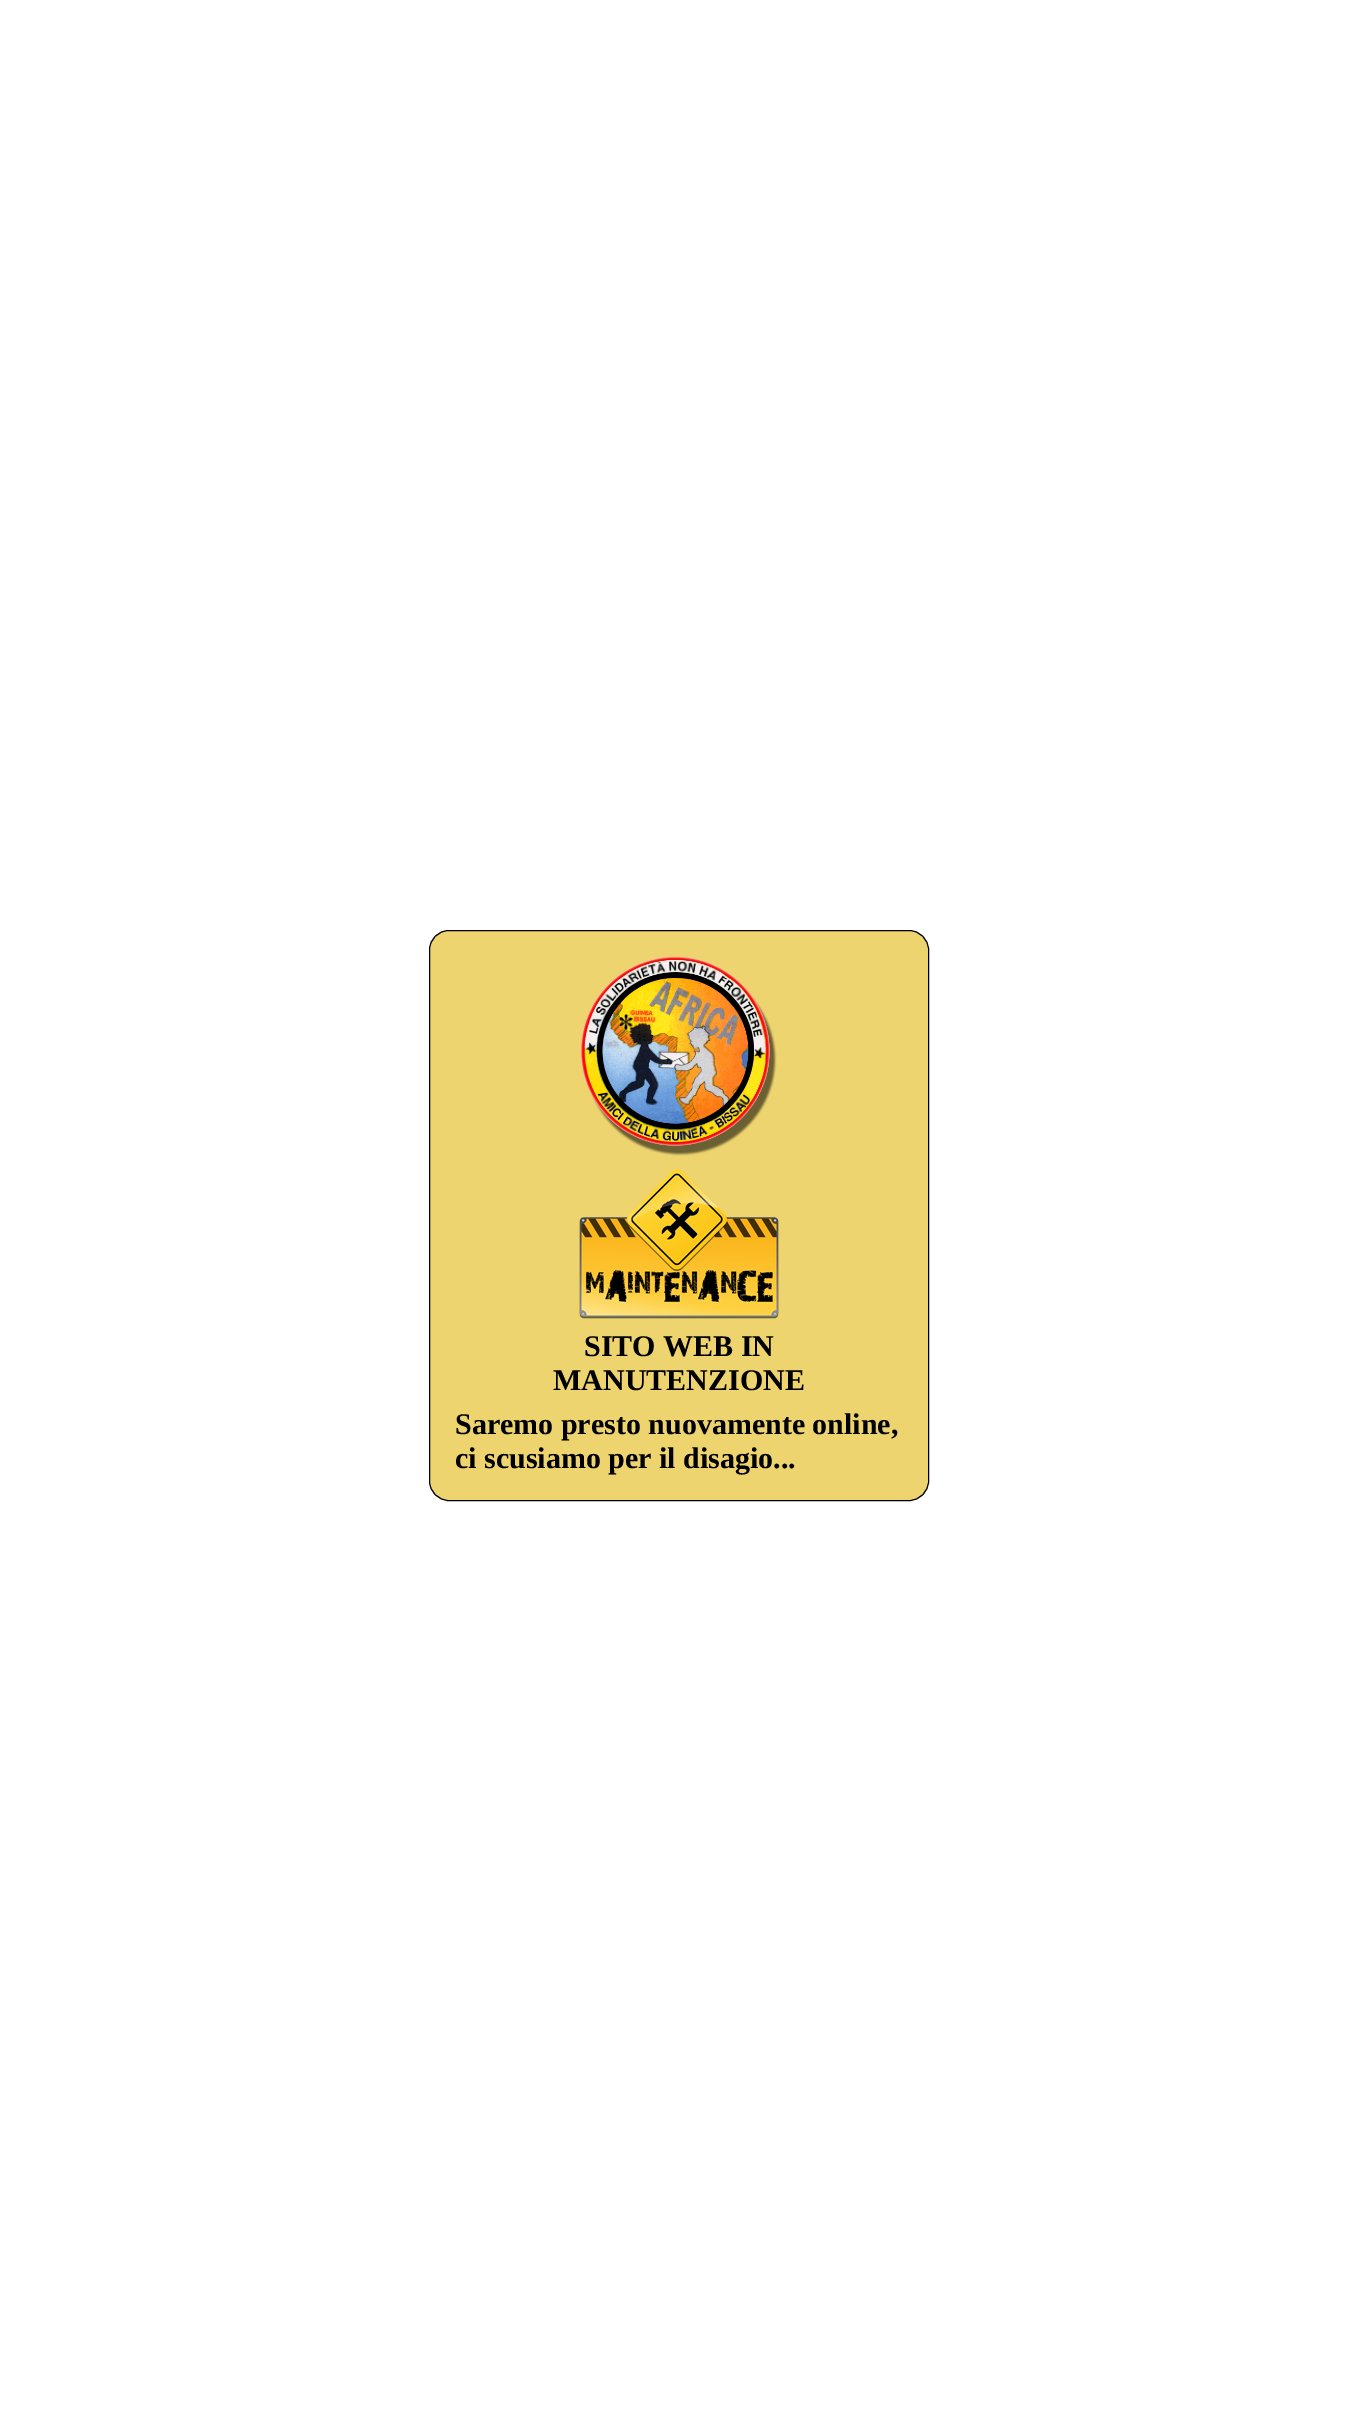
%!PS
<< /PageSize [1358 2431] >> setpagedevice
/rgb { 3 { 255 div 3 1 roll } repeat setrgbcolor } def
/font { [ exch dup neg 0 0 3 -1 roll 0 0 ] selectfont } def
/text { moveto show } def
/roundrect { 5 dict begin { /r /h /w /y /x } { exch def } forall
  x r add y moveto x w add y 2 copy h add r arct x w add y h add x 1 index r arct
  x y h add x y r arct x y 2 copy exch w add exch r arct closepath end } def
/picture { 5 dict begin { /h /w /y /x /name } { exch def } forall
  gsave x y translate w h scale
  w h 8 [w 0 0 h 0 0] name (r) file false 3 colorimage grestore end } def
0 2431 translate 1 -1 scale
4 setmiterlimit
255 255 255 rgb
0 0 1358 2431 rectfill
237 212 111 rgb
429.5 930.5 499 570 19.5 roundrect gsave fill grestore
0 0 0 rgb
stroke
(img_01.rgb) 580 956 197 200 picture
(img_02.rgb) 579 1169 200 150 picture
/LiberationSerif-Bold 30 font
(SITO WEB IN) 584 1356 text
(MANUTENZIONE) 553 1390 text
(Saremo presto nuovamente online,) 455 1434 text
(ci scusiamo per il disagio...) 455 1468 text
showpage
